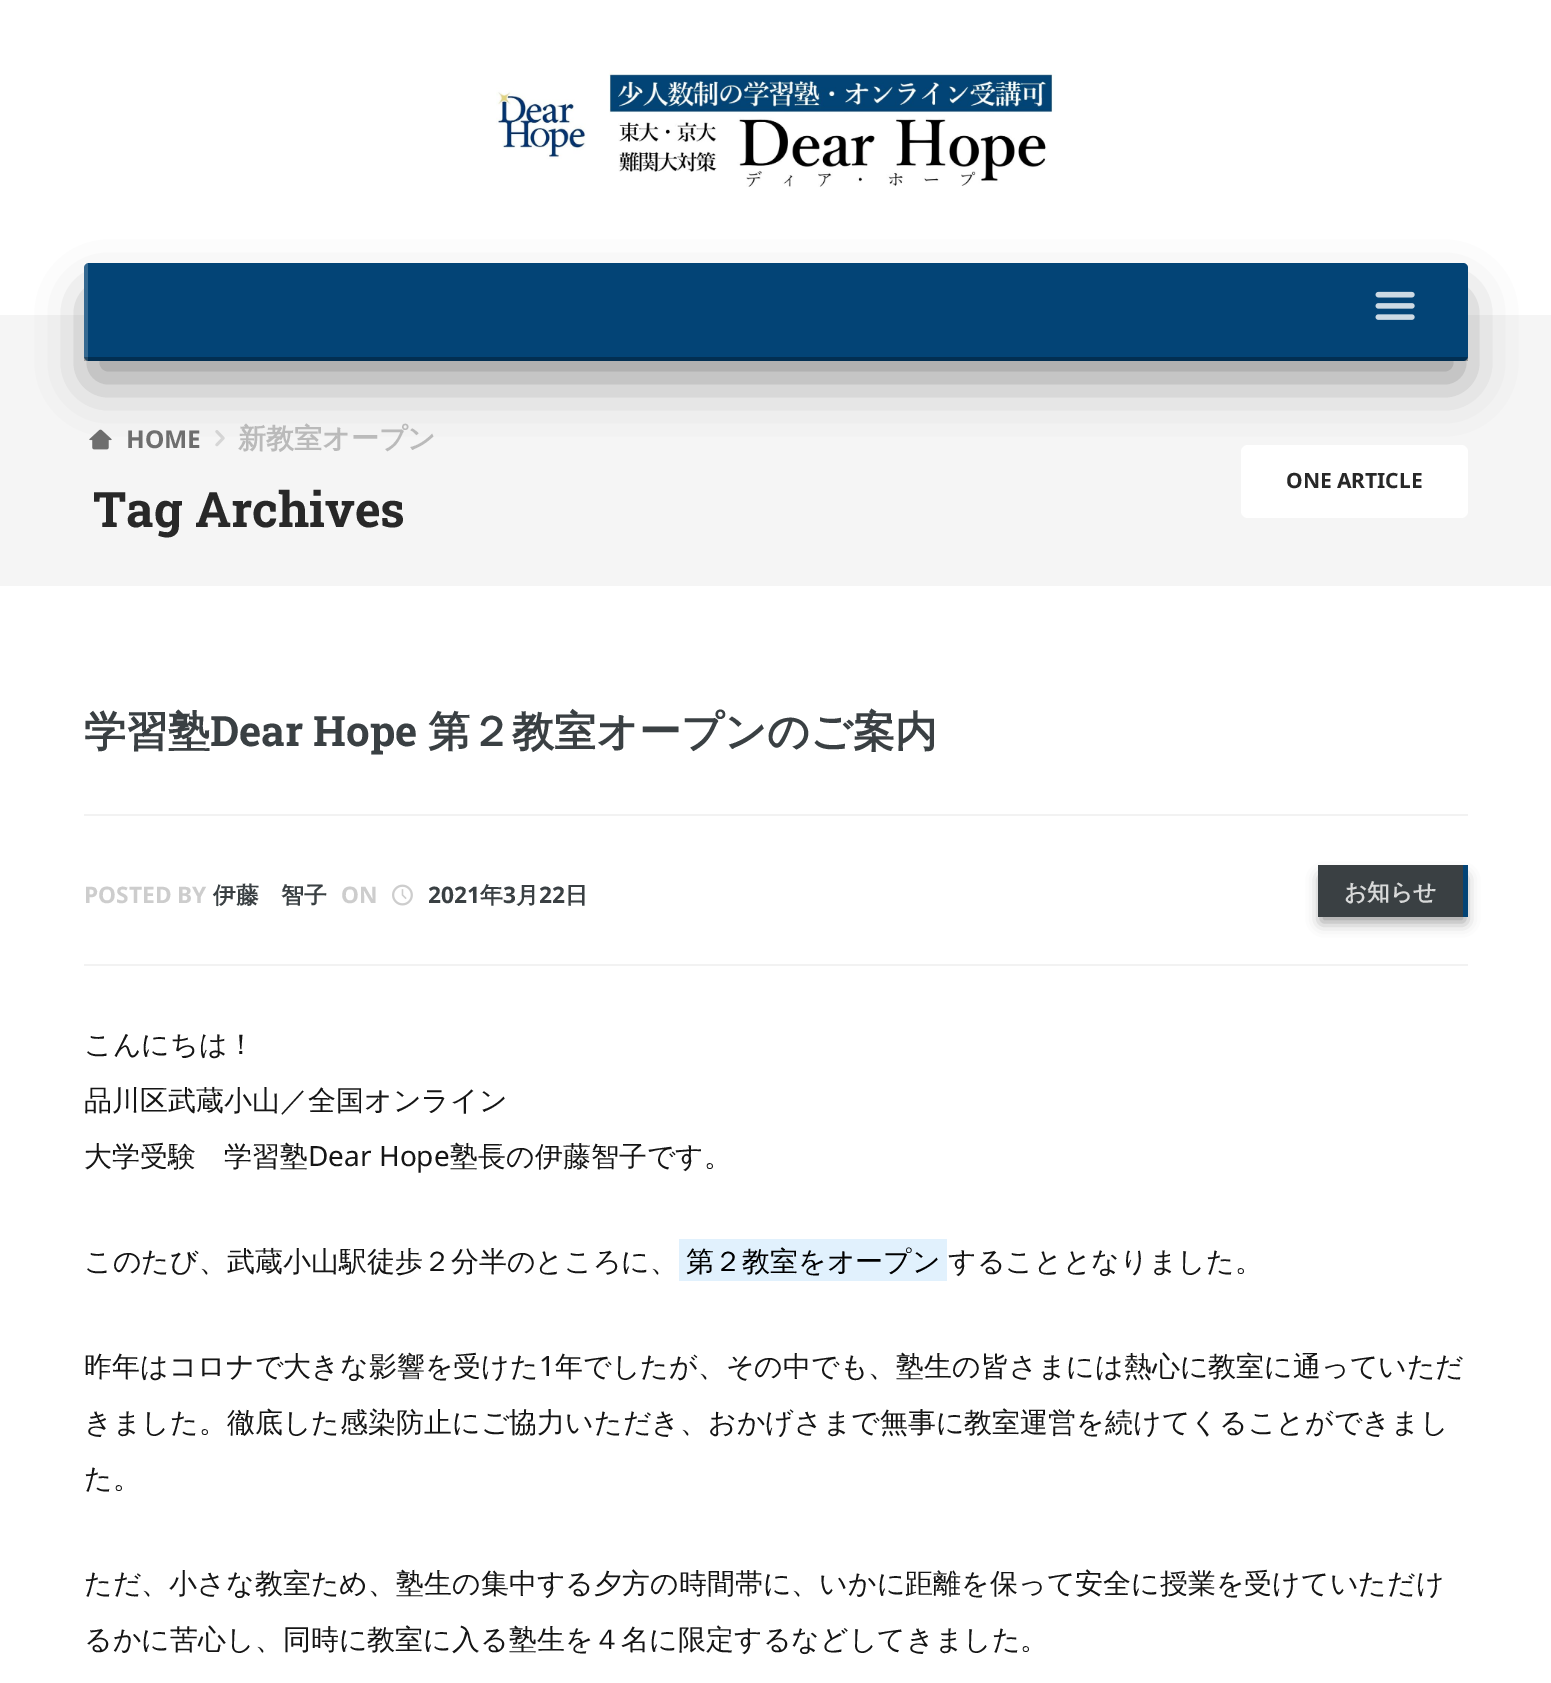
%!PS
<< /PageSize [1551 1683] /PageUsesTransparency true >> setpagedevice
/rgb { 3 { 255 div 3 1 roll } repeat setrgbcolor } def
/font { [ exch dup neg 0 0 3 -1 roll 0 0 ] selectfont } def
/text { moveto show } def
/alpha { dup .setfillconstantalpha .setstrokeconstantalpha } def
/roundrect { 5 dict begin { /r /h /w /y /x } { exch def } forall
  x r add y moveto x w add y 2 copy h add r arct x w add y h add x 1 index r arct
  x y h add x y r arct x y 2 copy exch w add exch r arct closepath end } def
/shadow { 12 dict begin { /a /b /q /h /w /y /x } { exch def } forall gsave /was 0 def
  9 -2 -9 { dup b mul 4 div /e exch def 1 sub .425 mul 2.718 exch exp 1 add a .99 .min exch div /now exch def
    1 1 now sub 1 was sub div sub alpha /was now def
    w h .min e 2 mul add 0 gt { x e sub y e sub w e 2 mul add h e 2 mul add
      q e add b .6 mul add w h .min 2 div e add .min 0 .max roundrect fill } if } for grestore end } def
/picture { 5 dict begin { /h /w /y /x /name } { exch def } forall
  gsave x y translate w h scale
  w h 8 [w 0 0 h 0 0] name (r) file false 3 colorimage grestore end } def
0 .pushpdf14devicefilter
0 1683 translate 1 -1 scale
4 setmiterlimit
255 255 255 rgb
0 0 1551 1683 rectfill
(img_01.rgb) 496 70 560 117 picture
245 245 245 rgb
0 315 1551 271 rectfill
(img_03.rgb) 89 429 23 21 picture
(img_04.rgb) 215 430 10 17 picture
255 255 255 rgb
1241 445 227 73 7 roundrect fill
0 0 0 rgb
93 298 1367 80 0 26 0.4 shadow
3 68 118 rgb
84 263 1384 98 5 roundrect fill
0.2 alpha
255 255 255 rgb
84 263 4 98 rectfill
1 alpha
(img_02.rgb) 1375 291 40 29 picture
0.3 alpha
0 0 0 rgb
84 357 1384 4 rectfill
1 alpha
242 242 242 rgb
84 814 1384 2 rectfill
(img_05.rgb) 392 884 21 22 picture
0 0 0 rgb
1321 877 144 45 0 7 0.4 shadow
58 64 67 rgb
1318 865 145 52 rectfill
3 68 118 rgb
1463 865 5 52 rectfill
242 242 242 rgb
84 964 1384 2 rectfill
225 241 253 rgb
679 1239 268 42 rectfill
/NotoSans-Bold 24.5 font
110 110 110 rgb
(HOME) 126 448 text
/WenQuanYiZenHei-Bold 28 font
186 186 186 rgb
(新教室オープン) 238 448 text
/RobotoSlab-Bold 49 font
40 40 40 rgb
(Tag Archives) 93 527 text
/NotoSans-Bold 21 font
(ONE ARTICLE) 1286 488 text
/WenQuanYiZenHei-Bold 42 font
58 64 67 rgb
(学習塾) 84 746 text
/RobotoSlab-Bold 42 font
(Dear Hope) 210 746 text
/WenQuanYiZenHei-Bold 42 font
(第２教室オープンのご案内) 428 746 text
/NotoSans-Bold 22.75 font
205 205 205 rgb
(POSTED BY) 84 903 text
/WenQuanYiZenHei-Bold 22.75 font
58 64 67 rgb
(伊藤　智子) 213 903 text
/NotoSans-Bold 22.75 font
205 205 205 rgb
(ON) 341 903 text
58 64 67 rgb
(2021) 428 903 text
/WenQuanYiZenHei-Bold 22.75 font
(年) 480 903 text
/NotoSans-Bold 22.75 font
(3) 503 903 text
/WenQuanYiZenHei-Bold 22.75 font
(月) 516 903 text
/NotoSans-Bold 22.75 font
(22) 539 903 text
/WenQuanYiZenHei-Bold 22.75 font
(日) 565 903 text
216 217 217 rgb
(お知らせ) 1344 900 text
/WenQuanYiZenHei-Medium 28 font
21 21 21 rgb
(こんにちは！) 84 1054 text
(品川区武蔵小山／全国オンライン) 84 1110 text
(大学受験　学習塾) 84 1166 text
/NotoSans-Regular 28 font
(Dear Hope) 308 1166 text
/WenQuanYiZenHei-Medium 28 font
(塾長の伊藤智子です。) 450 1166 text
(このたび、武蔵小山駅徒歩２分半のところに、) 84 1271 text
0 0 0 rgb
(第２教室をオープン) 686 1271 text
21 21 21 rgb
(することとなりました。) 948 1271 text
(昨年はコロナで大きな影響を受けた) 84 1376 text
/NotoSans-Regular 28 font
(1) 539 1376 text
/WenQuanYiZenHei-Medium 28 font
(年でしたが、その中でも、塾生の皆さまには熱心に教室に通っていただ) 555 1376 text
(きました。徹底した感染防止にご協力いただき、おかげさまで無事に教室運営を続けてくることができまし) 84 1432 text
(た。) 84 1488 text
(ただ、小さな教室ため、塾生の集中する夕方の時間帯に、いかに距離を保って安全に授業を受けていただけ) 84 1593 text
(るかに苦心し、同時に教室に入る塾生を４名に限定するなどしてきました。) 84 1649 text
.poppdf14devicefilter showpage
